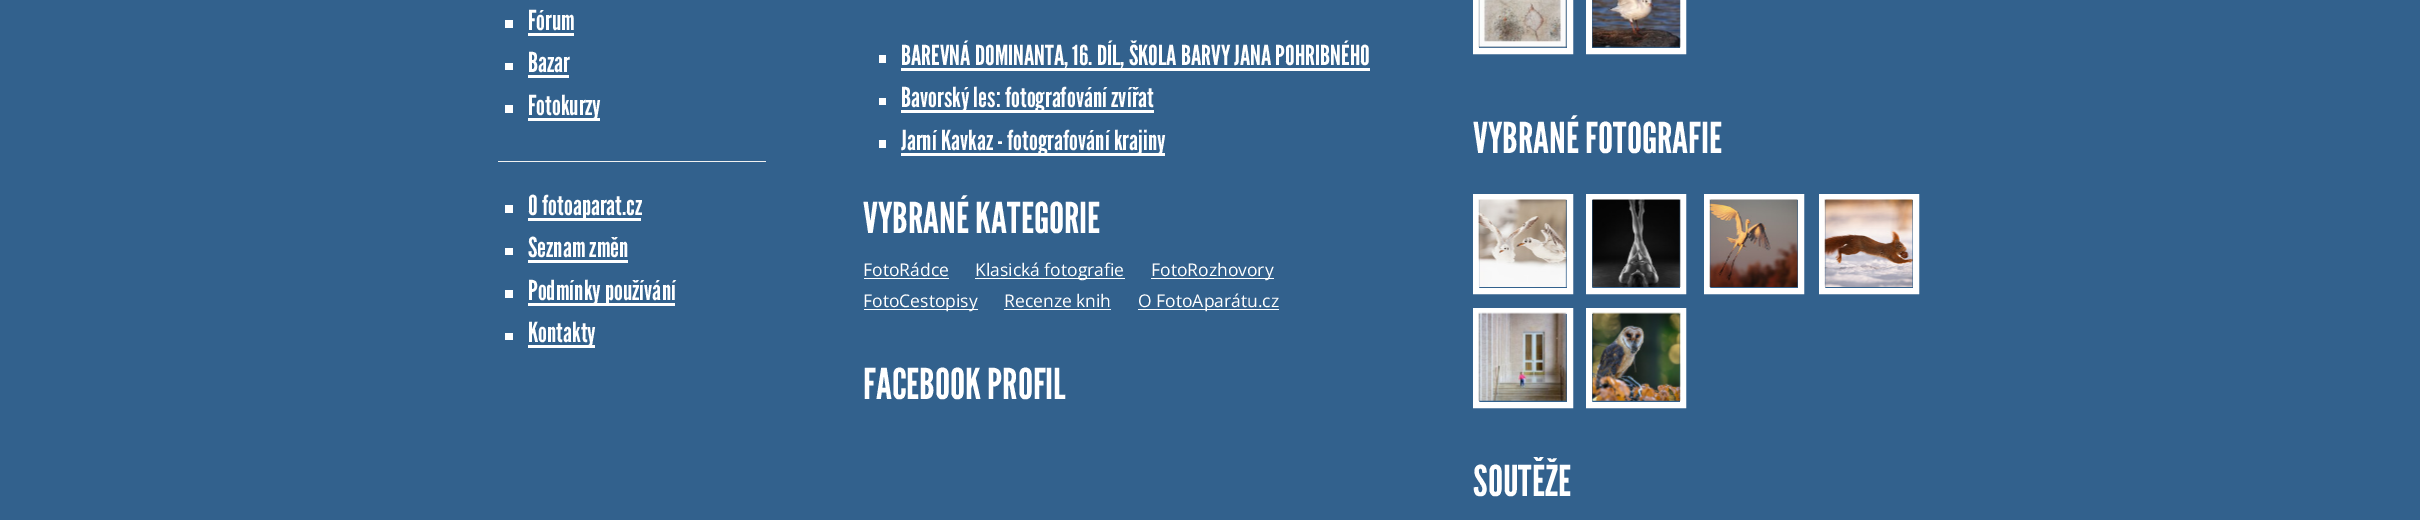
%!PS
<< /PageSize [2420 520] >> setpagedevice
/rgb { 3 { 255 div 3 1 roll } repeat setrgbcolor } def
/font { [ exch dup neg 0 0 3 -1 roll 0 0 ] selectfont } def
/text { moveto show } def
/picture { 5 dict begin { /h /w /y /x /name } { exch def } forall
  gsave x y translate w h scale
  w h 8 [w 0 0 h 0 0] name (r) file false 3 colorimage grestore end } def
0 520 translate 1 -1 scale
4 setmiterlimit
50 97 141 rgb
0 0 2420 520 rectfill
255 255 255 rgb
505 20 8 8 rectfill
528 33 46 3 rectfill
505 63 8 7 rectfill
528 75 41 3 rectfill
505 105 8 8 rectfill
528 118 72 3 rectfill
240 241 241 rgb
498 161 268 1 rectfill
255 255 255 rgb
505 205 8 8 rectfill
528 218 113 3 rectfill
505 248 8 7 rectfill
528 260 100 3 rectfill
505 290 8 8 rectfill
528 303 147 3 rectfill
505 333 8 7 rectfill
528 345 67 3 rectfill
879 55 7 8 rectfill
901 68 469 3 rectfill
879 98 7 7 rectfill
901 110 253 3 rectfill
879 140 7 8 rectfill
901 153 264 3 rectfill
864 278 85 1 rectfill
975 278 150 1 rectfill
1151 278 123 1 rectfill
864 309 114 1 rectfill
1004 309 107 1 rectfill
1138 309 141 1 rectfill
6 setlinewidth
1476 -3 94 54 rectstroke
(img_01.rgb) 1478 0 89 48 picture
1589 -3 94 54 rectstroke
(img_02.rgb) 1592 0 89 48 picture
1476 197 94 94 rectstroke
(img_03.rgb) 1478 199 89 88 picture
1589 197 94 94 rectstroke
(img_04.rgb) 1592 199 89 88 picture
1707 197 94 94 rectstroke
(img_05.rgb) 1709 199 89 88 picture
1822 197 94 94 rectstroke
(img_06.rgb) 1824 199 89 88 picture
1476 311 94 94 rectstroke
(img_07.rgb) 1478 312 89 89 picture
1589 311 94 94 rectstroke
(img_08.rgb) 1592 312 89 89 picture
/LeagueGothic-Regular 27.5 font
(Fórum) 528 30 text
(Bazar) 528 72 text
(Fotokurzy) 528 115 text
(O fotoaparat.cz) 528 215 text
(Seznam změn) 528 257 text
(Podmínky používání) 528 300 text
(Kontakty) 528 342 text
(BAREVNÁ DOMINANTA, 16. DÍL, ŠKOLA BARVY JANA POHRIBNÉHO) 901 65 text
(Bavorský les: fotografování zvířat) 901 107 text
(Jarní Kavkaz - fotografování krajiny) 901 150 text
/LeagueGothic-Regular 42.5 font
(VYBRANÉ KATEGORIE) 863 233 text
/OpenSans-Regular 17.5 font
(FotoRádce) 863 276 text
(Klasická fotografie) 975 276 text
(FotoRozhovory) 1151 276 text
(FotoCestopisy) 863 307 text
(Recenze knih) 1004 307 text
(O FotoAparátu.cz) 1138 307 text
/LeagueGothic-Regular 42.5 font
(FACEBOOK PROFIL) 863 399 text
(VYBRANÉ FOTOGRAFIE) 1473 153 text
(SOUTĚŽE) 1473 496 text
showpage
